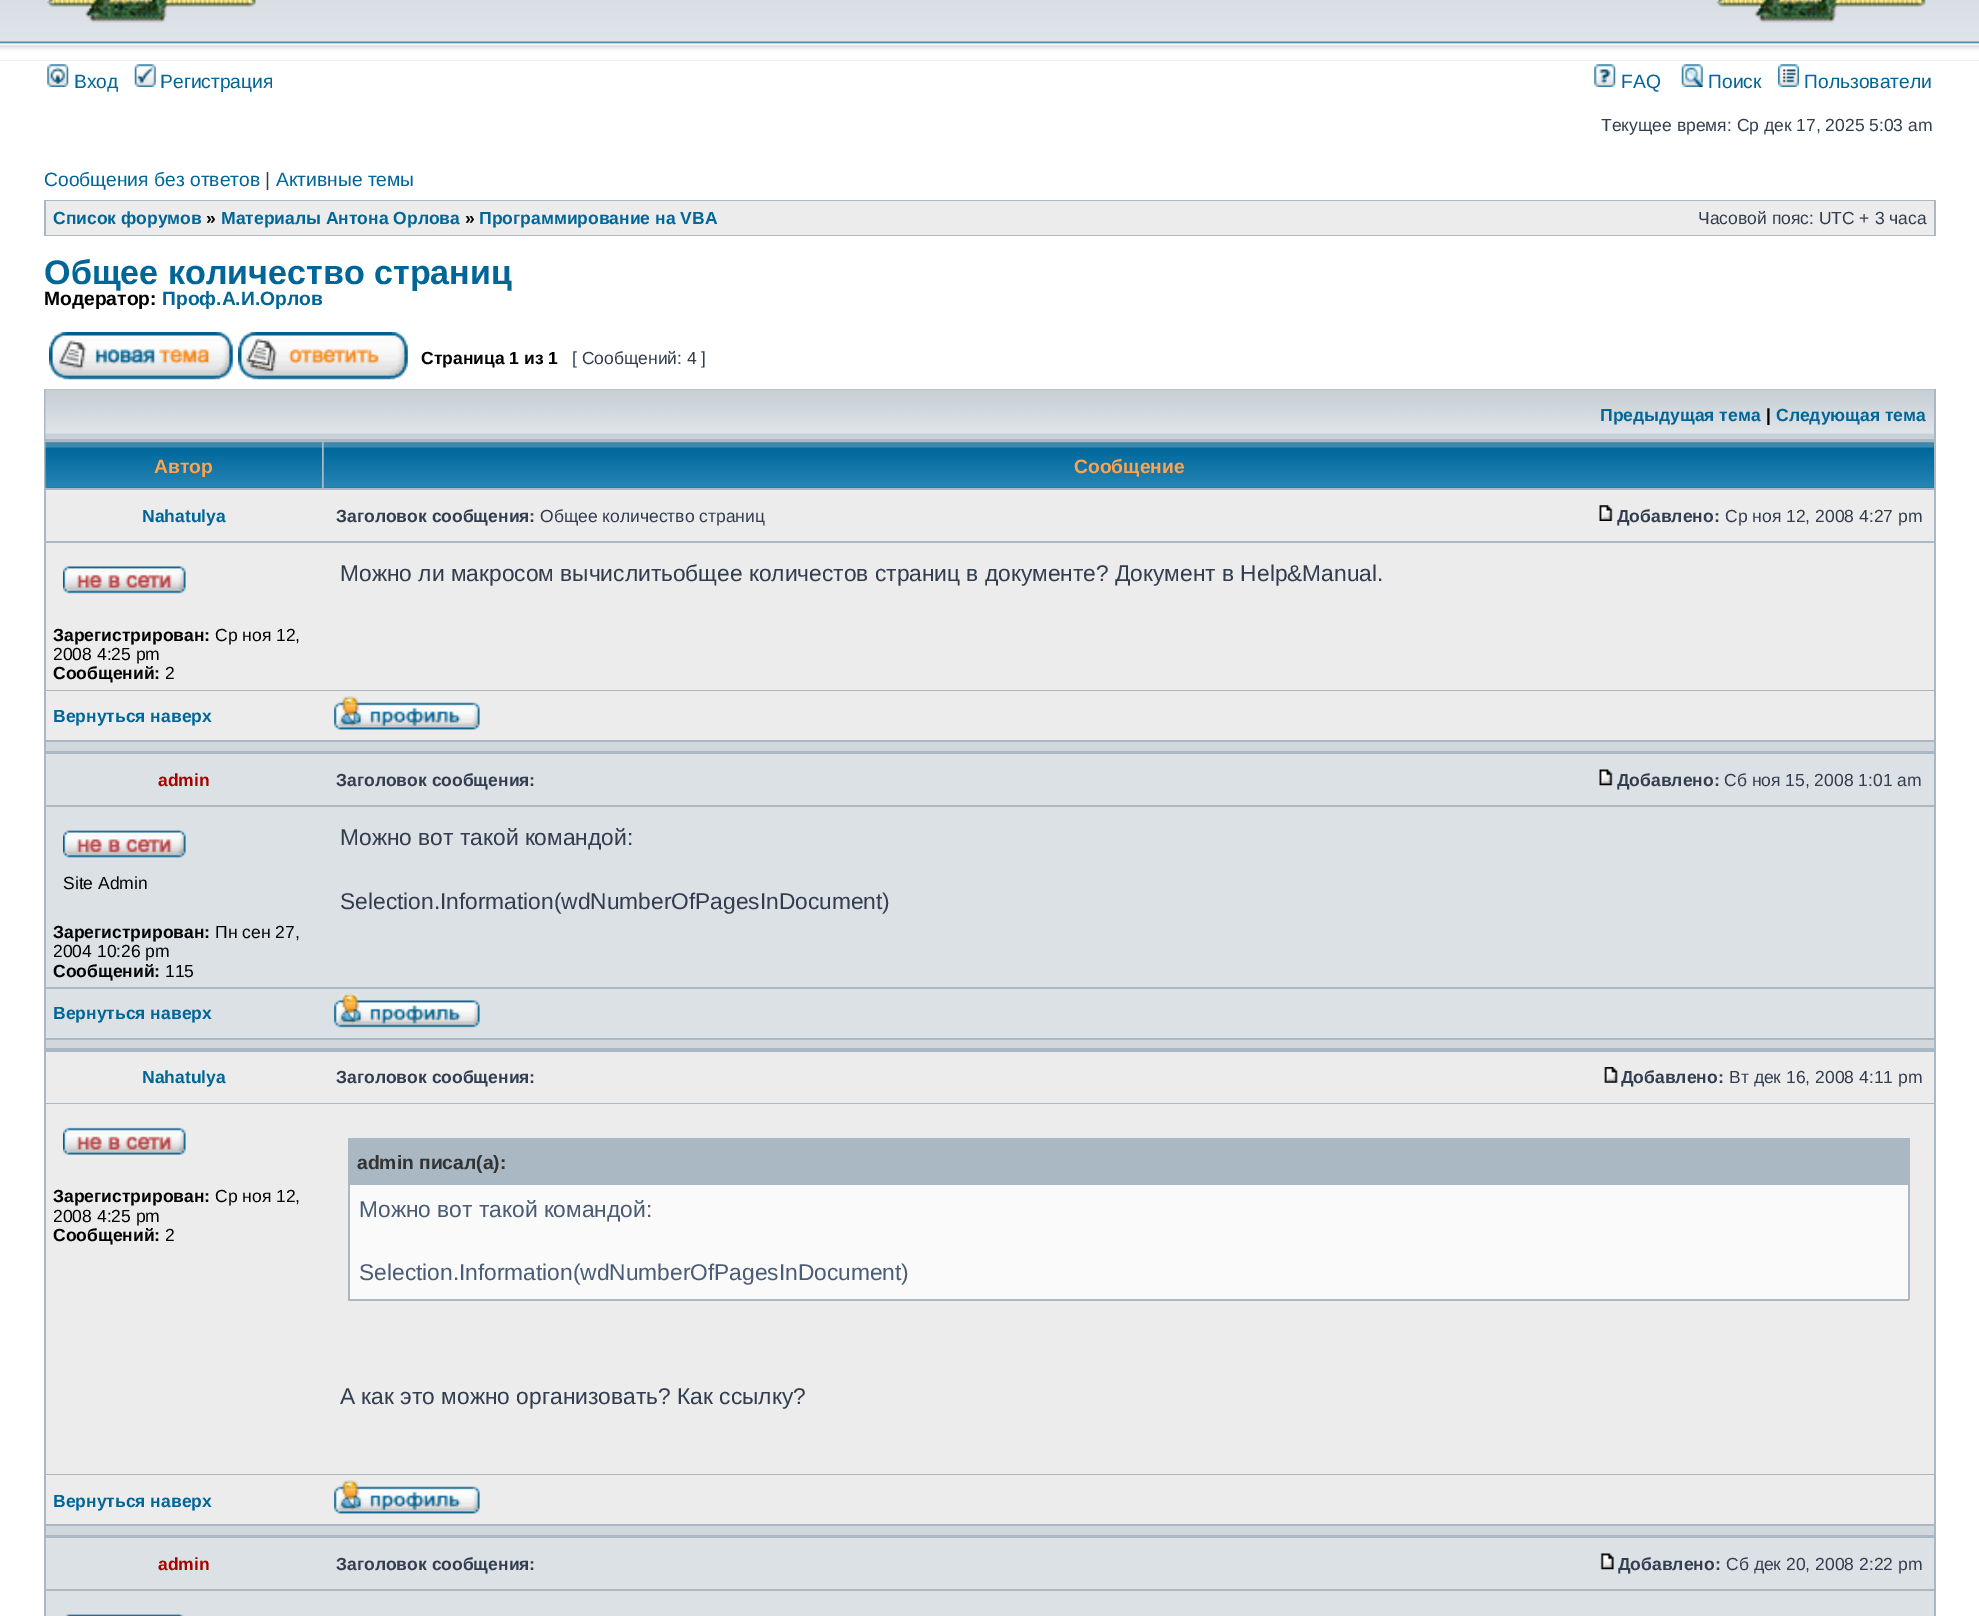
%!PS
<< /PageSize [1979 1616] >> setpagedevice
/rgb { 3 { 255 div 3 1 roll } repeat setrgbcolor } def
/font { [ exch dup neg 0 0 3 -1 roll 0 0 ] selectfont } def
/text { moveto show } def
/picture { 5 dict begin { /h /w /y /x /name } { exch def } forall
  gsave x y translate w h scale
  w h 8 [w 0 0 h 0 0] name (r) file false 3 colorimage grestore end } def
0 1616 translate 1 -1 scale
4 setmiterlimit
255 255 255 rgb
0 0 1979 1616 rectfill
(img_01.rgb) 0 0 1979 61 picture
(img_02.rgb) 47 0 209 23 picture
(img_03.rgb) 1716 0 210 23 picture
(img_04.rgb) 47 64 22 23 picture
(img_05.rgb) 134 64 22 23 picture
(img_06.rgb) 1594 64 22 23 picture
(img_07.rgb) 1681 64 22 23 picture
(img_08.rgb) 1778 64 21 23 picture
169 184 194 rgb
44 200 1892 36 rectfill
236 236 236 rgb
46 201 1888 34 rectfill
(img_09.rgb) 49 332 184 48 picture
(img_10.rgb) 238 332 170 48 picture
169 184 194 rgb
44 389 1892 1227 rectfill
199 208 215 rgb
46 390 1888 49 rectfill
(img_11.rgb) 45 389 1889 50 picture
(img_12.rgb) 45 442 277 46 picture
0 102 153 rgb
324 443 1610 45 rectfill
(img_13.rgb) 323 442 1611 46 picture
236 236 236 rgb
46 490 1888 51 rectfill
(img_14.rgb) 1599 505 14 16 picture
46 543 1888 147 rectfill
(img_15.rgb) 63 566 123 28 picture
46 691 1888 49 rectfill
(img_16.rgb) 334 696 146 34 picture
209 215 220 rgb
46 742 1888 9 rectfill
220 225 229 rgb
46 754 1888 51 rectfill
(img_17.rgb) 1599 769 14 17 picture
46 807 1888 180 rectfill
(img_18.rgb) 63 830 123 28 picture
46 989 1888 49 rectfill
(img_19.rgb) 334 993 146 35 picture
209 215 220 rgb
46 1040 1888 8 rectfill
236 236 236 rgb
46 1052 1888 51 rectfill
(img_20.rgb) 1604 1067 14 16 picture
46 1104 1888 370 rectfill
(img_21.rgb) 63 1127 123 28 picture
169 184 194 rgb
350 1140 1558 45 rectfill
348 1138 1561 2 rectfill
1908 1138 2 162 rectfill
348 1138 2 47 rectfill
250 250 250 rgb
350 1185 1558 114 rectfill
169 184 194 rgb
348 1299 1561 2 rectfill
348 1185 2 115 rectfill
236 236 236 rgb
46 1475 1888 49 rectfill
(img_16.rgb) 334 1480 146 34 picture
209 215 220 rgb
46 1526 1888 9 rectfill
220 225 229 rgb
46 1538 1888 51 rectfill
(img_22.rgb) 1600 1553 14 17 picture
46 1591 1888 25 rectfill
(img_23.rgb) 65 1614 119 2 picture
/LiberationSans-Regular 19.25 font
0 101 151 rgb
(Вход) 74 88 text
(Регистрация) 160 88 text
(FAQ) 1621 88 text
(Поиск) 1708 88 text
(Пользователи) 1804 88 text
/LiberationSans-Regular 17.5 font
50 61 79 rgb
(Текущее время: Ср дек 17, 2025 5:03 am) 1601 131 text
/LiberationSans-Regular 19.25 font
0 101 151 rgb
(Сообщения без ответов) 44 186 text
50 61 79 rgb
(|) 265 186 text
0 101 151 rgb
(Активные темы) 276 186 text
/LiberationSans-Bold 17.5 font
(Список форумов) 53 224 text
0 0 0 rgb
(») 206 224 text
0 101 151 rgb
(Материалы Антона Орлова) 221 224 text
0 0 0 rgb
(») 465 224 text
0 101 151 rgb
(Программирование на VBA) 479 224 text
/LiberationSans-Regular 17.5 font
50 61 79 rgb
(Часовой пояс: UTC + 3 часа) 1698 224 text
/LiberationSans-Bold 34.1 font
0 101 151 rgb
(Общее количество страниц) 44 284 text
/LiberationSans-Bold 19.25 font
0 0 0 rgb
(Модератор:) 44 305 text
0 101 151 rgb
(Проф.А.И.Орлов) 162 305 text
/LiberationSans-Bold 17.5 font
0 0 0 rgb
(Страница 1 из 1) 421 364 text
/LiberationSans-Regular 17.5 font
50 61 79 rgb
([ Сообщений: 4 ]) 572 364 text
/LiberationSans-Bold 17.5 font
0 101 151 rgb
(Предыдущая тема) 1600 421 text
0 0 0 rgb
(|) 1766 421 text
0 101 151 rgb
(Следующая тема) 1776 421 text
/LiberationSans-Bold 19.25 font
255 163 79 rgb
(Автор) 154 473 text
(Сообщение) 1074 473 text
/LiberationSans-Bold 17.5 font
0 101 151 rgb
(Nahatulya) 142 522 text
50 61 79 rgb
(Заголовок сообщения:) 336 522 text
/LiberationSans-Regular 17.5 font
(Общее количество страниц) 540 522 text
/LiberationSans-Bold 17.5 font
(Добавлено:) 1617 522 text
/LiberationSans-Regular 17.5 font
(Ср ноя 12, 2008 4:27 pm) 1725 522 text
/LiberationSans-Regular 22.75 font
(Можно ли макросом вычислитьобщее количестов страниц в документе? Документ в Help&Manual.) 340 581 text
/LiberationSans-Bold 17.5 font
0 0 0 rgb
(Зарегистрирован:) 53 641 text
/LiberationSans-Regular 17.5 font
(Ср ноя 12,) 215 641 text
(2008 4:25 pm) 53 660 text
/LiberationSans-Bold 17.5 font
(Сообщений:) 53 679 text
/LiberationSans-Regular 17.5 font
(2) 165 679 text
/LiberationSans-Bold 17.5 font
0 101 151 rgb
(Вернуться наверх) 53 722 text
170 0 0 rgb
(admin) 158 786 text
50 61 79 rgb
(Заголовок сообщения:) 336 786 text
(Добавлено:) 1617 786 text
/LiberationSans-Regular 17.5 font
(Сб ноя 15, 2008 1:01 am) 1724 786 text
0 0 0 rgb
(Site Admin) 63 889 text
/LiberationSans-Bold 17.5 font
(Зарегистрирован:) 53 938 text
/LiberationSans-Regular 17.5 font
(Пн сен 27,) 215 938 text
(2004 10:26 pm) 53 957 text
/LiberationSans-Bold 17.5 font
(Сообщений:) 53 977 text
/LiberationSans-Regular 17.5 font
(115) 165 977 text
/LiberationSans-Regular 22.75 font
50 61 79 rgb
(Можно вот такой командой:) 340 845 text
(Selection.Information\(wdNumberOfPagesInDocument\)) 340 909 text
/LiberationSans-Bold 17.5 font
0 101 151 rgb
(Вернуться наверх) 53 1019 text
(Nahatulya) 142 1083 text
50 61 79 rgb
(Заголовок сообщения:) 336 1083 text
(Добавлено:) 1621 1083 text
/LiberationSans-Regular 17.5 font
(Вт дек 16, 2008 4:11 pm) 1729 1083 text
/LiberationSans-Bold 17.5 font
0 0 0 rgb
(Зарегистрирован:) 53 1202 text
/LiberationSans-Regular 17.5 font
(Ср ноя 12,) 215 1202 text
(2008 4:25 pm) 53 1222 text
/LiberationSans-Bold 17.5 font
(Сообщений:) 53 1241 text
/LiberationSans-Regular 17.5 font
(2) 165 1241 text
/LiberationSans-Bold 19.25 font
51 51 51 rgb
(admin писал\(а\):) 357 1169 text
/LiberationSans-Regular 22.75 font
75 92 119 rgb
(Можно вот такой командой:) 359 1217 text
(Selection.Information\(wdNumberOfPagesInDocument\)) 359 1280 text
50 61 79 rgb
(А как это можно организовать? Как ссылку?) 340 1404 text
/LiberationSans-Bold 17.5 font
0 101 151 rgb
(Вернуться наверх) 53 1507 text
170 0 0 rgb
(admin) 158 1570 text
50 61 79 rgb
(Заголовок сообщения:) 336 1570 text
(Добавлено:) 1618 1570 text
/LiberationSans-Regular 17.5 font
(Сб дек 20, 2008 2:22 pm) 1726 1570 text
showpage
